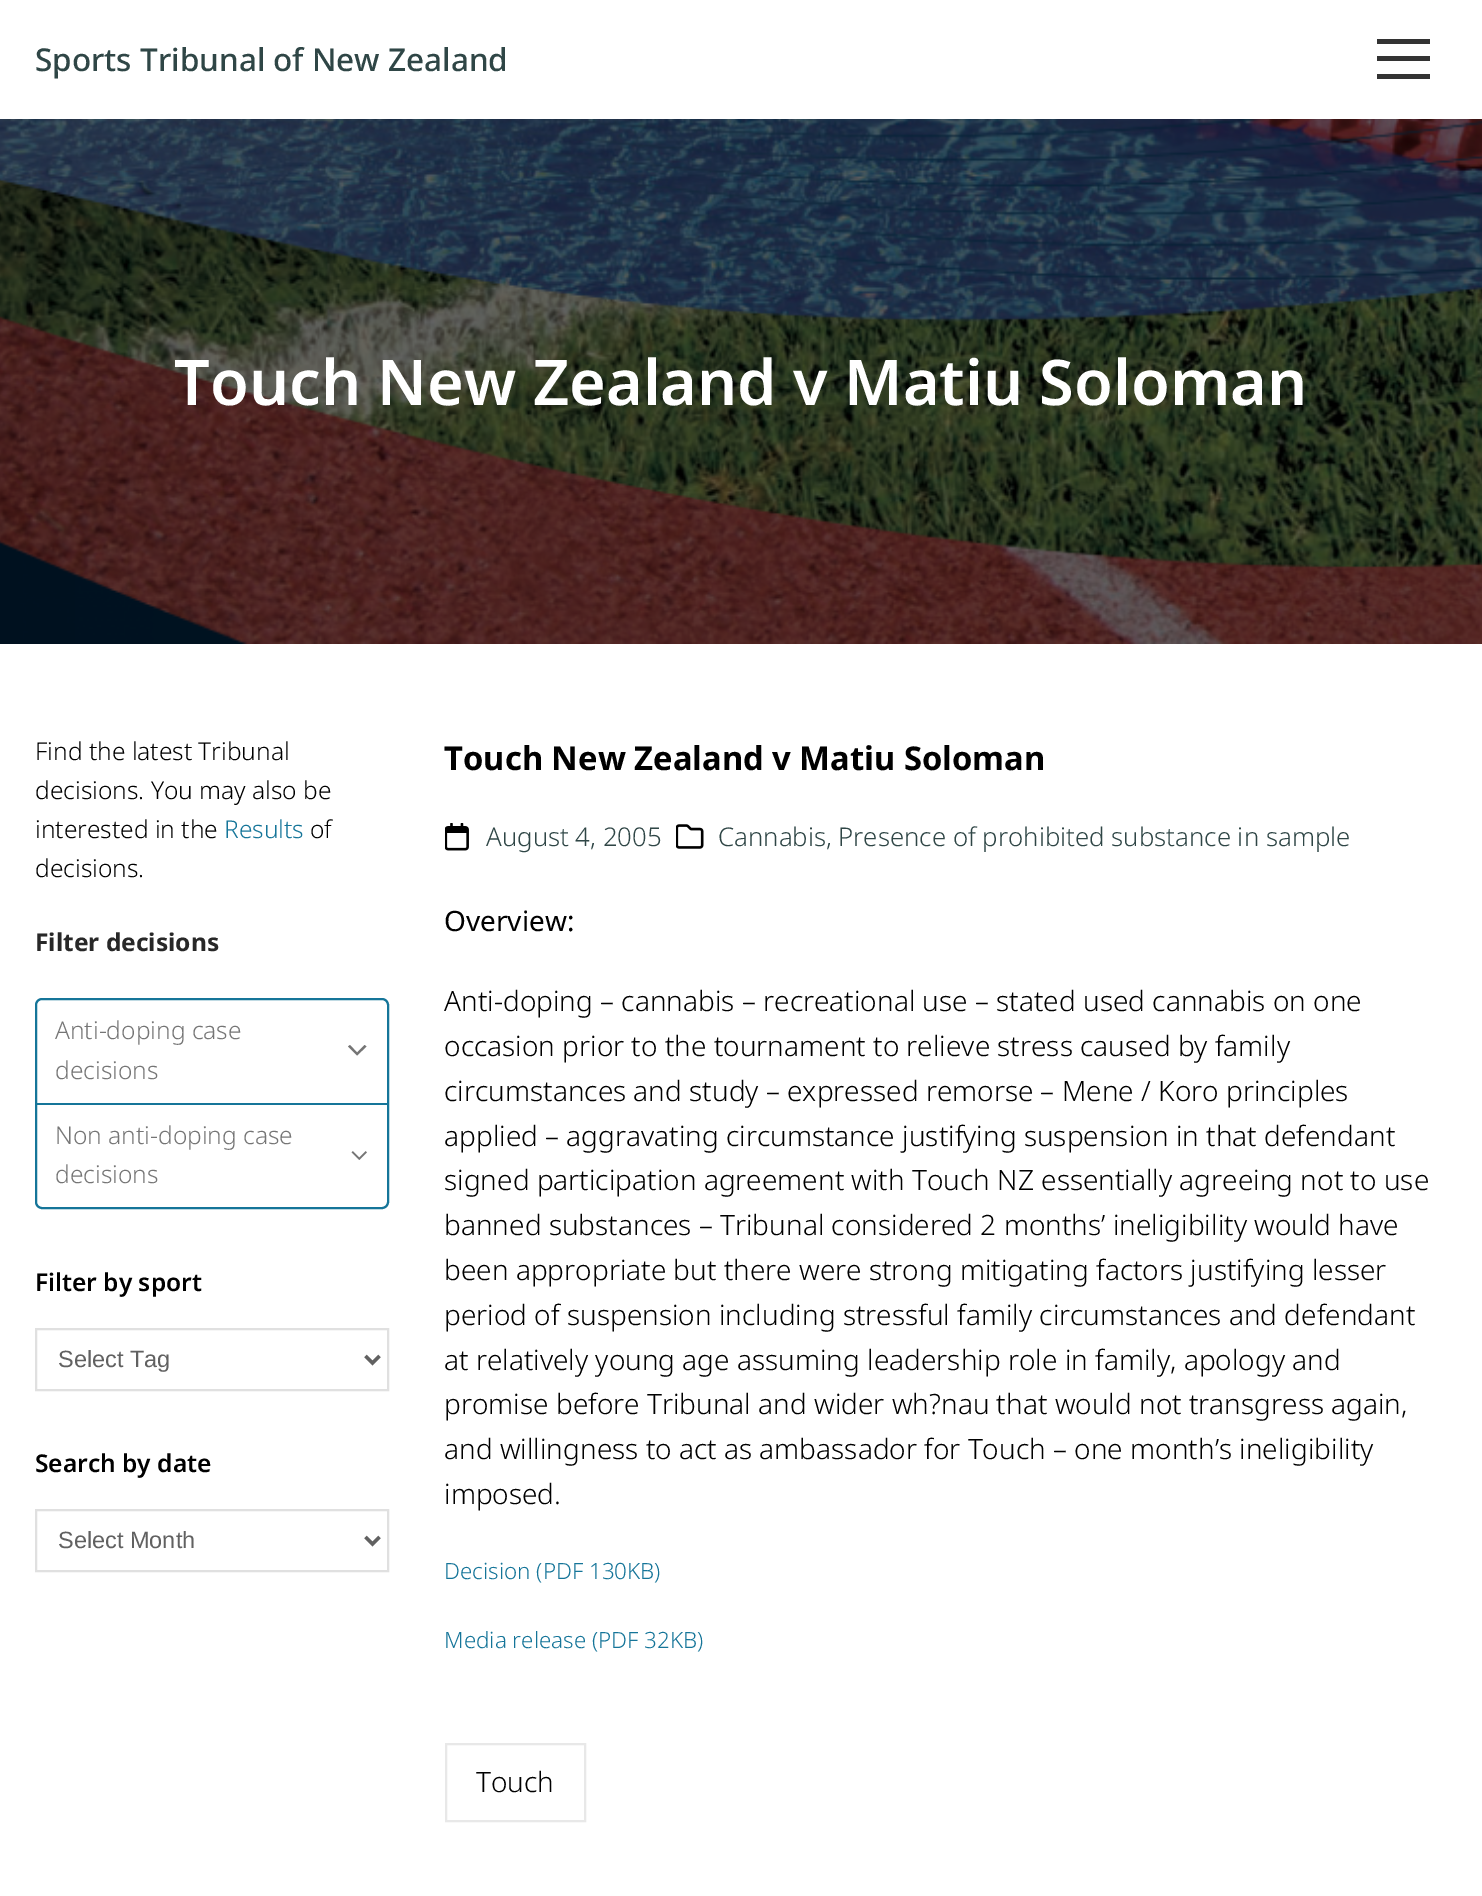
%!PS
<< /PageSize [1482 1896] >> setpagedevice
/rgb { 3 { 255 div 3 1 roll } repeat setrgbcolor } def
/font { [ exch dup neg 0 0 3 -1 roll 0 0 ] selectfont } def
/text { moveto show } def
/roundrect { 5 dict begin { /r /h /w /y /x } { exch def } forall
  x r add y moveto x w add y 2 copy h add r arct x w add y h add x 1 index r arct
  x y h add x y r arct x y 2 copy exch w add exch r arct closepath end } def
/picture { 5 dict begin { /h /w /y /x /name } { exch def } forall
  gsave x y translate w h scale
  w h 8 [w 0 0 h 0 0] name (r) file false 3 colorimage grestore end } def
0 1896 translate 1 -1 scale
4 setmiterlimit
255 255 255 rgb
0 0 1482 1896 rectfill
51 51 51 rgb
1377 39 53 5 rectfill
1377 56 53 5 rectfill
1377 74 53 5 rectfill
(img_01.rgb) 0 119 1482 525 picture
21 117 153 rgb
2 setlinewidth
36 999 352 209 6 roundrect stroke
37 1103 350 2 rectfill
117 117 117 rgb
350 1045 moveto -2 1.5 rlineto 9 9 rlineto 9.5 -9 rlineto -2 -1.5 rlineto -7.5 7.5 rlineto closepath fill
(img_02.rgb) 351 1151 16 9 picture
224 224 224 rgb
36 1329 352 61 rectstroke
97 97 97 rgb
3.5 setlinewidth
365.5 1356 moveto 7 7 rlineto 7 -7 rlineto stroke
224 224 224 rgb
2 setlinewidth
36 1510 352 61 rectstroke
97 97 97 rgb
3.5 setlinewidth
365.5 1537 moveto 7 7 rlineto 7 -7 rlineto stroke
(img_03.rgb) 445 823 24 28 picture
(img_04.rgb) 676 824 28 25 picture
232 232 232 rgb
2 setlinewidth
446 1744 139 77 rectstroke
/NotoSans-Medium 31.5 font
47 70 70 rgb
(Sports Tribunal of New Zealand) 35 71 text
/NotoSans-SemiBold 63 font
255 255 255 rgb
(Touch New Zealand v Matiu Soloman) 174 405 text
/NotoSans-Light 24.5 font
0 0 0 rgb
(Find the latest Tribunal) 35 760 text
(decisions. You may also be) 35 799 text
(interested in the) 35 838 text
21 117 153 rgb
(Results) 224 838 text
0 0 0 rgb
(of) 310 838 text
(decisions.) 35 877 text
/NotoSans-Bold 24.5 font
40 40 40 rgb
(Filter decisions) 35 951 text
/NotoSans-Light 24.5 font
117 117 117 rgb
(Anti-doping case) 55 1039 text
(decisions) 55 1079 text
(Non anti-doping case) 55 1144 text
(decisions) 55 1183 text
/NotoSans-SemiBold 24.5 font
0 0 0 rgb
(Filter by sport) 35 1291 text
/LiberationSans-Regular 23.5 font
97 97 97 rgb
(Select Tag) 58 1367 text
/NotoSans-SemiBold 24.5 font
0 0 0 rgb
(Search by date) 35 1472 text
/LiberationSans-Regular 23.5 font
97 97 97 rgb
(Select Month) 58 1548 text
/NotoSans-Bold 32.75 font
0 0 0 rgb
(Touch New Zealand v Matiu Soloman) 444 770 text
/NotoSans-Light 25.8 font
47 70 70 rgb
(August 4, 2005) 486 846 text
(Cannabis,) 718 846 text
(Presence of prohibited substance in sample) 838 846 text
/NotoSans-Regular 28 font
0 0 0 rgb
(Overview:) 444 931 text
/NotoSans-Light 28 font
(Anti-doping – cannabis – recreational use – stated used cannabis on one) 444 1011 text
(occasion prior to the tournament to relieve stress caused by family) 444 1056 text
(circumstances and study – expressed remorse – Mene / Koro principles) 444 1101 text
(applied – aggravating circumstance justifying suspension in that defendant) 444 1146 text
(signed participation agreement with Touch NZ essentially agreeing not to use) 444 1190 text
(banned substances – Tribunal considered 2 months’ ineligibility would have) 444 1235 text
(been appropriate but there were strong mitigating factors justifying lesser) 444 1280 text
(period of suspension including stressful family circumstances and defendant) 444 1325 text
(at relatively young age assuming leadership role in family, apology and) 444 1370 text
(promise before Tribunal and wider wh?nau that would not transgress again,) 444 1414 text
(and willingness to act as ambassador for Touch – one month’s ineligibility) 444 1459 text
(imposed.) 444 1504 text
/NotoSans-Light 22.4 font
21 117 153 rgb
(Decision \(PDF 130KB\)) 444 1579 text
(Media release \(PDF 32KB\)) 444 1648 text
/NotoSans-Light 28 font
0 0 0 rgb
(Touch) 476 1792 text
showpage
